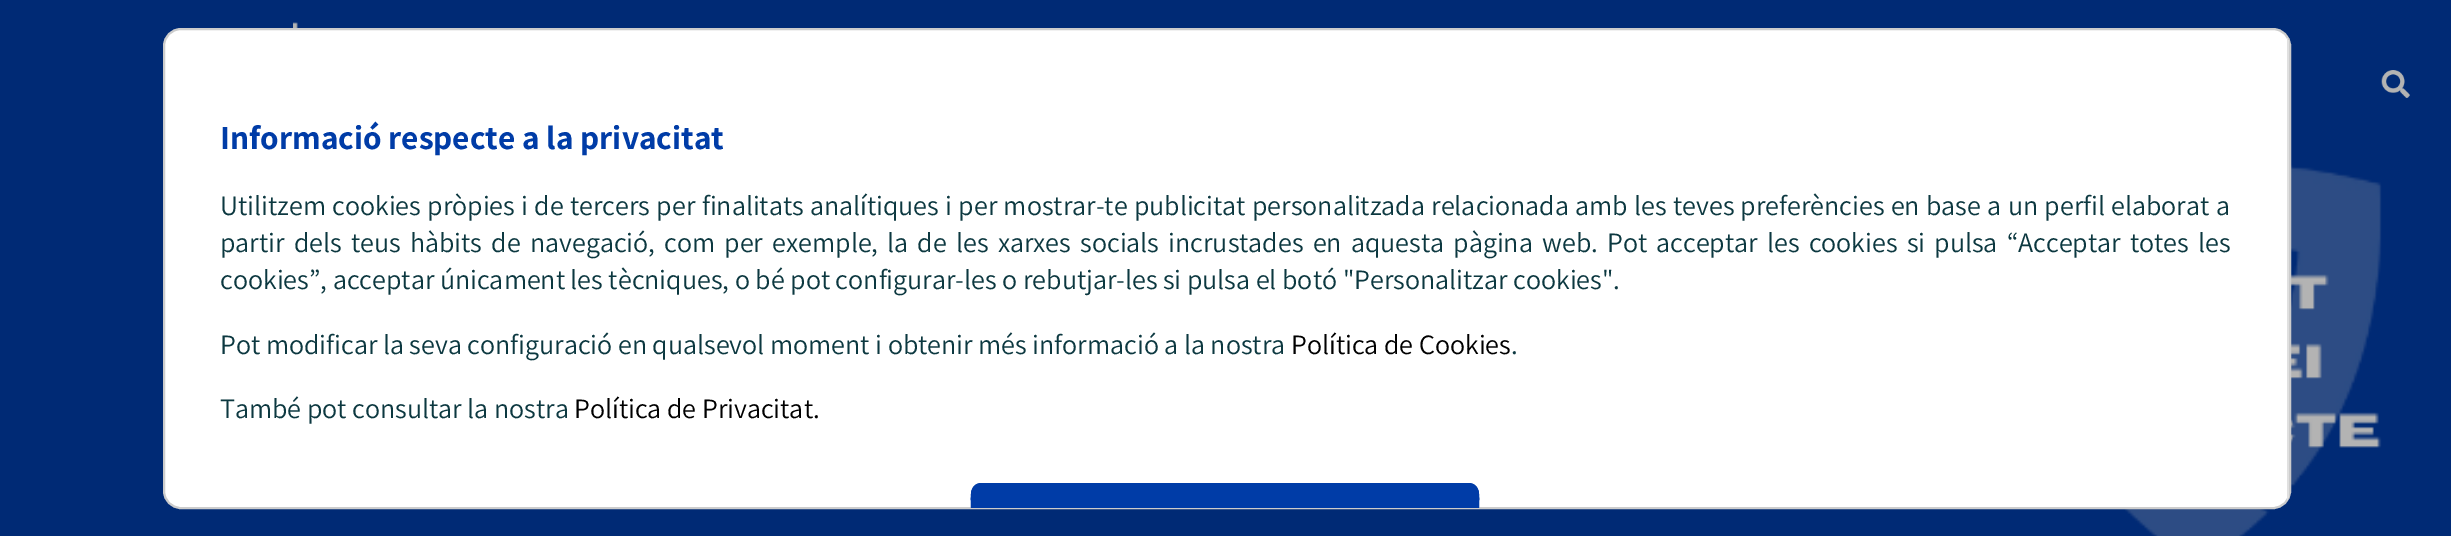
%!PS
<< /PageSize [2451 536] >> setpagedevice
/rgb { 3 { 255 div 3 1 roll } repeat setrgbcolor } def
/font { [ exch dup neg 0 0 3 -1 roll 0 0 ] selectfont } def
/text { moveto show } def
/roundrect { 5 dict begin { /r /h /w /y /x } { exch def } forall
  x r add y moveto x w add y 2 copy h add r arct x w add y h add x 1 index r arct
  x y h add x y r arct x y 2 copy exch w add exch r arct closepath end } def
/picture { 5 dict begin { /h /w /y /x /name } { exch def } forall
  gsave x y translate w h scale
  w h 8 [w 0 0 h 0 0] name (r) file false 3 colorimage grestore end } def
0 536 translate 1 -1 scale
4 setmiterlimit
255 255 255 rgb
0 0 2451 536 rectfill
(img_01.rgb) 0 0 2451 536 picture
(img_02.rgb) 293 22 5 6 picture
(img_03.rgb) 2381 70 29 28 picture
164 29 2126 479 17 roundrect gsave fill grestore
204 204 204 rgb
2 setlinewidth
stroke
gsave
165 30 2124 478 16 roundrect clip newpath
224 224 224 rgb
2287 30 2 478 rectfill
grestore
0 60 167 rgb
982 483 moveto 486 0 rlineto 6 0 11 5 11 11 rcurveto 0 14 rlineto -508 0 rlineto 0 -14 rlineto 0 -6 5 -11 11 -11 rcurveto closepath fill
982 483 moveto -14 0 -11 16 -11 25 rcurveto 2 0 rlineto 0 -14 rlineto 0 -5 4 -9 9 -9 rcurveto 486 0 rlineto 5 0 9 4 9 9 rcurveto 0 14 rlineto 2 0 rlineto 0 -9 3 -25 -11 -25 rcurveto closepath fill
/Assistant-Bold 33.6 font
(Informació respecte a la privacitat) 220 149 text
/Assistant-Regular 28 font
12 56 64 rgb
220 215 moveto 0.75 0 32 (Utilitzem cookies pròpies i de tercers per finalitats analítiques i per mostrar-te publicitat personalitzada relacionada amb les teves preferències en base a un perfil elaborat a) widthshow
220 252 moveto 3.6 0 32 (partir dels teus hàbits de navegació, com per exemple, la de les xarxes socials incrustades en aquesta pàgina web. Pot acceptar les cookies si pulsa “Acceptar totes les) widthshow
(cookies”, acceptar únicament les tècniques, o bé pot configurar-les o rebutjar-les si pulsa el botó "Personalitzar cookies".) 220 289 text
(Pot modificar la seva configuració en qualsevol moment i obtenir més informació a la nostra) 220 354 text
0 0 0 rgb
(Política de Cookies) 1291 354 text
12 56 64 rgb
(.) 1511 354 text
(També pot consultar la nostra) 220 418 text
0 0 0 rgb
(Política de Privacitat.) 574 418 text
showpage
